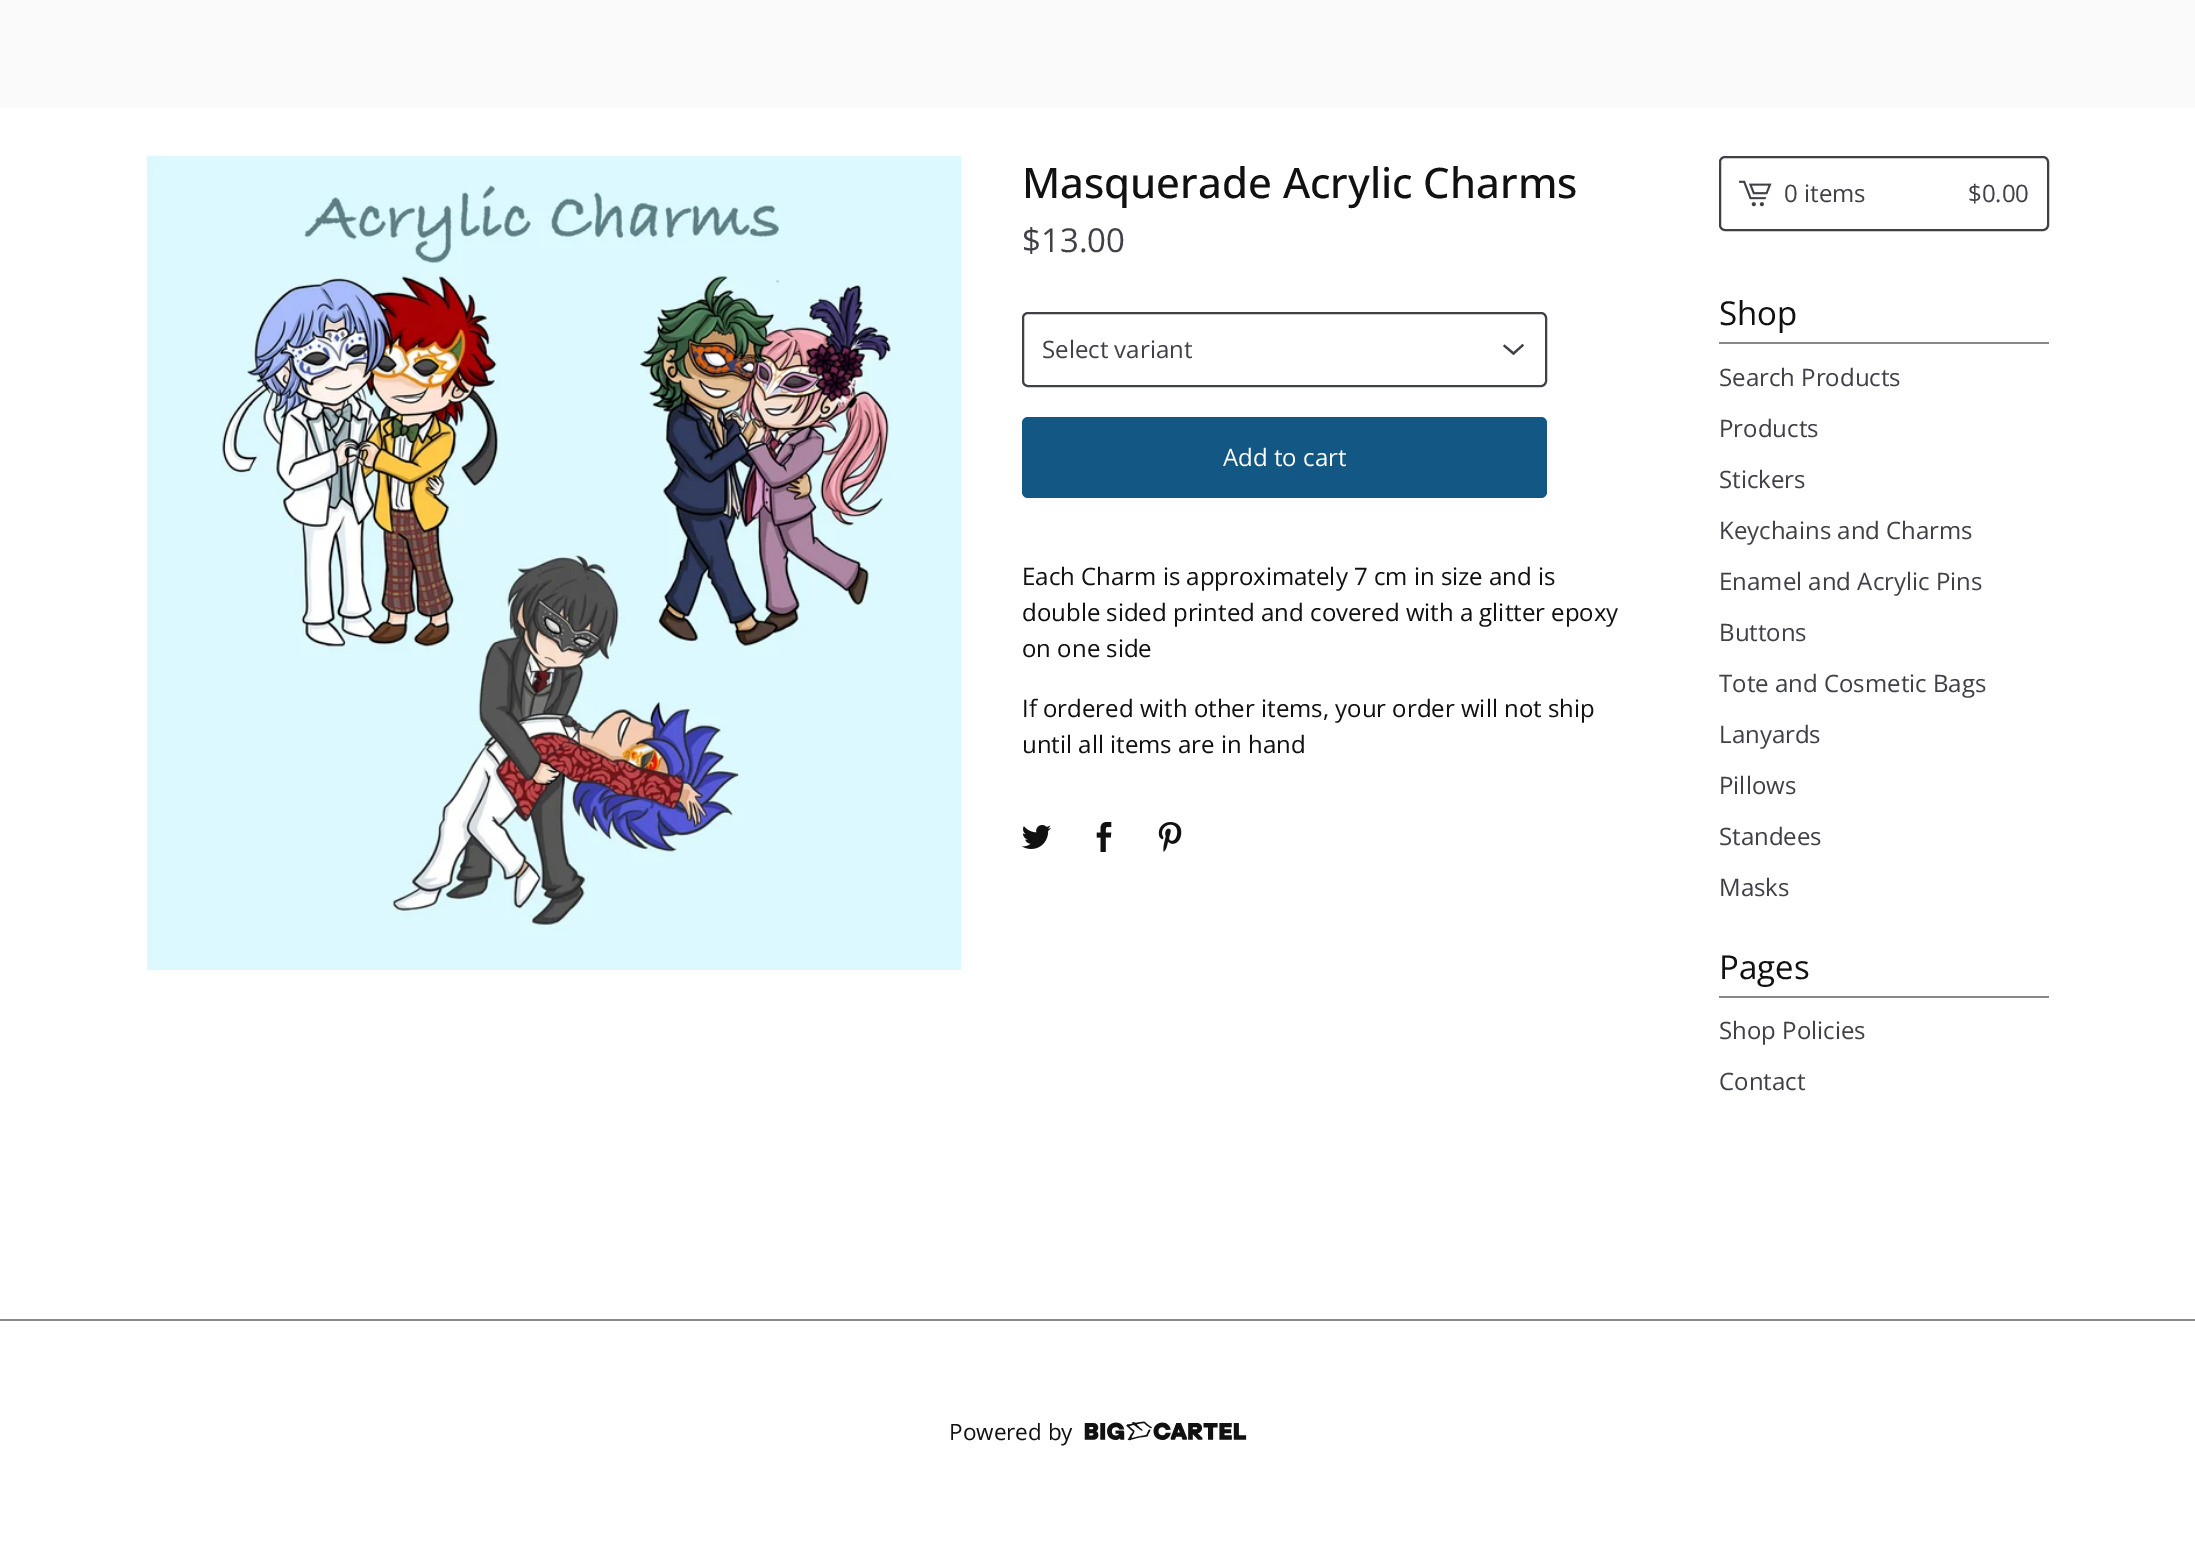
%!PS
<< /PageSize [2195 1543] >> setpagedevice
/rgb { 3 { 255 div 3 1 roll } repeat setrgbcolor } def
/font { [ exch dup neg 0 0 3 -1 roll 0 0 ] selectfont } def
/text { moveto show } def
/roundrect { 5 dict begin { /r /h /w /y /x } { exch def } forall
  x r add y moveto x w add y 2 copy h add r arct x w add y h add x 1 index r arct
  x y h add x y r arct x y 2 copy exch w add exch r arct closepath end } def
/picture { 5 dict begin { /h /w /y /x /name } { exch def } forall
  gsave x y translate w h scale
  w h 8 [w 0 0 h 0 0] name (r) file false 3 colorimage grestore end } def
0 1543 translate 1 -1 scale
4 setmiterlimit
255 255 255 rgb
0 0 2195 1543 rectfill
250 250 250 rgb
0 0 2195 108 rectfill
(img_01.rgb) 147 155 815 815 picture
64 65 71 rgb
2 setlinewidth
1023 313 523 73 5 roundrect stroke
1524 345.5 moveto -10.5 9.5 rlineto -10.5 -9 rlineto 1.5 -1.5 rlineto 9 7.5 rlineto 9 -8 rlineto closepath fill
19 88 132 rgb
1022 417 525 81 6 roundrect fill
(img_02.rgb) 1022 825 29 24 picture
(img_03.rgb) 1096 822 16 30 picture
(img_04.rgb) 1158 822 24 30 picture
64 65 71 rgb
1720 157 328 73 5 roundrect stroke
(img_05.rgb) 1739 180 33 27 picture
136 136 136 rgb
1719 342 330 2 rectfill
1719 996 330 2 rectfill
0 1319 2195 2 rectfill
(img_06.rgb) 1084 1421 163 20 picture
/OpenSans-Medium 42 font
17 17 17 rgb
(Masquerade Acrylic Charms) 1022 198 text
/OpenSans-Regular 33 font
64 65 71 rgb
($13.00) 1022 252 text
/OpenSans-Regular 24 font
(Select variant) 1042 358 text
255 255 255 rgb
(Add to cart) 1223 466 text
17 17 17 rgb
(Each Charm is approximately 7 cm in size and is) 1022 585 text
(double sided printed and covered with a glitter epoxy) 1022 621 text
(on one side) 1022 657 text
(If ordered with other items, your order will not ship) 1022 717 text
(until all items are in hand) 1022 753 text
64 65 71 rgb
(0 items) 1784 202 text
($0.00) 1968 202 text
/OpenSans-Regular 33 font
17 17 17 rgb
(Shop) 1719 325 text
/OpenSans-Regular 24 font
64 65 71 rgb
(Search Products) 1719 386 text
(Products) 1719 437 text
(Stickers) 1719 488 text
(Keychains and Charms) 1719 539 text
(Enamel and Acrylic Pins) 1719 590 text
(Buttons) 1719 641 text
(Tote and Cosmetic Bags) 1719 692 text
(Lanyards) 1719 743 text
(Pillows) 1719 794 text
(Standees) 1719 845 text
(Masks) 1719 896 text
/OpenSans-Regular 33 font
17 17 17 rgb
(Pages) 1719 979 text
/OpenSans-Regular 24 font
64 65 71 rgb
(Shop Policies) 1719 1039 text
(Contact) 1719 1090 text
/OpenSans-Regular 22.5 font
17 17 17 rgb
(Powered by) 949 1440 text
showpage
